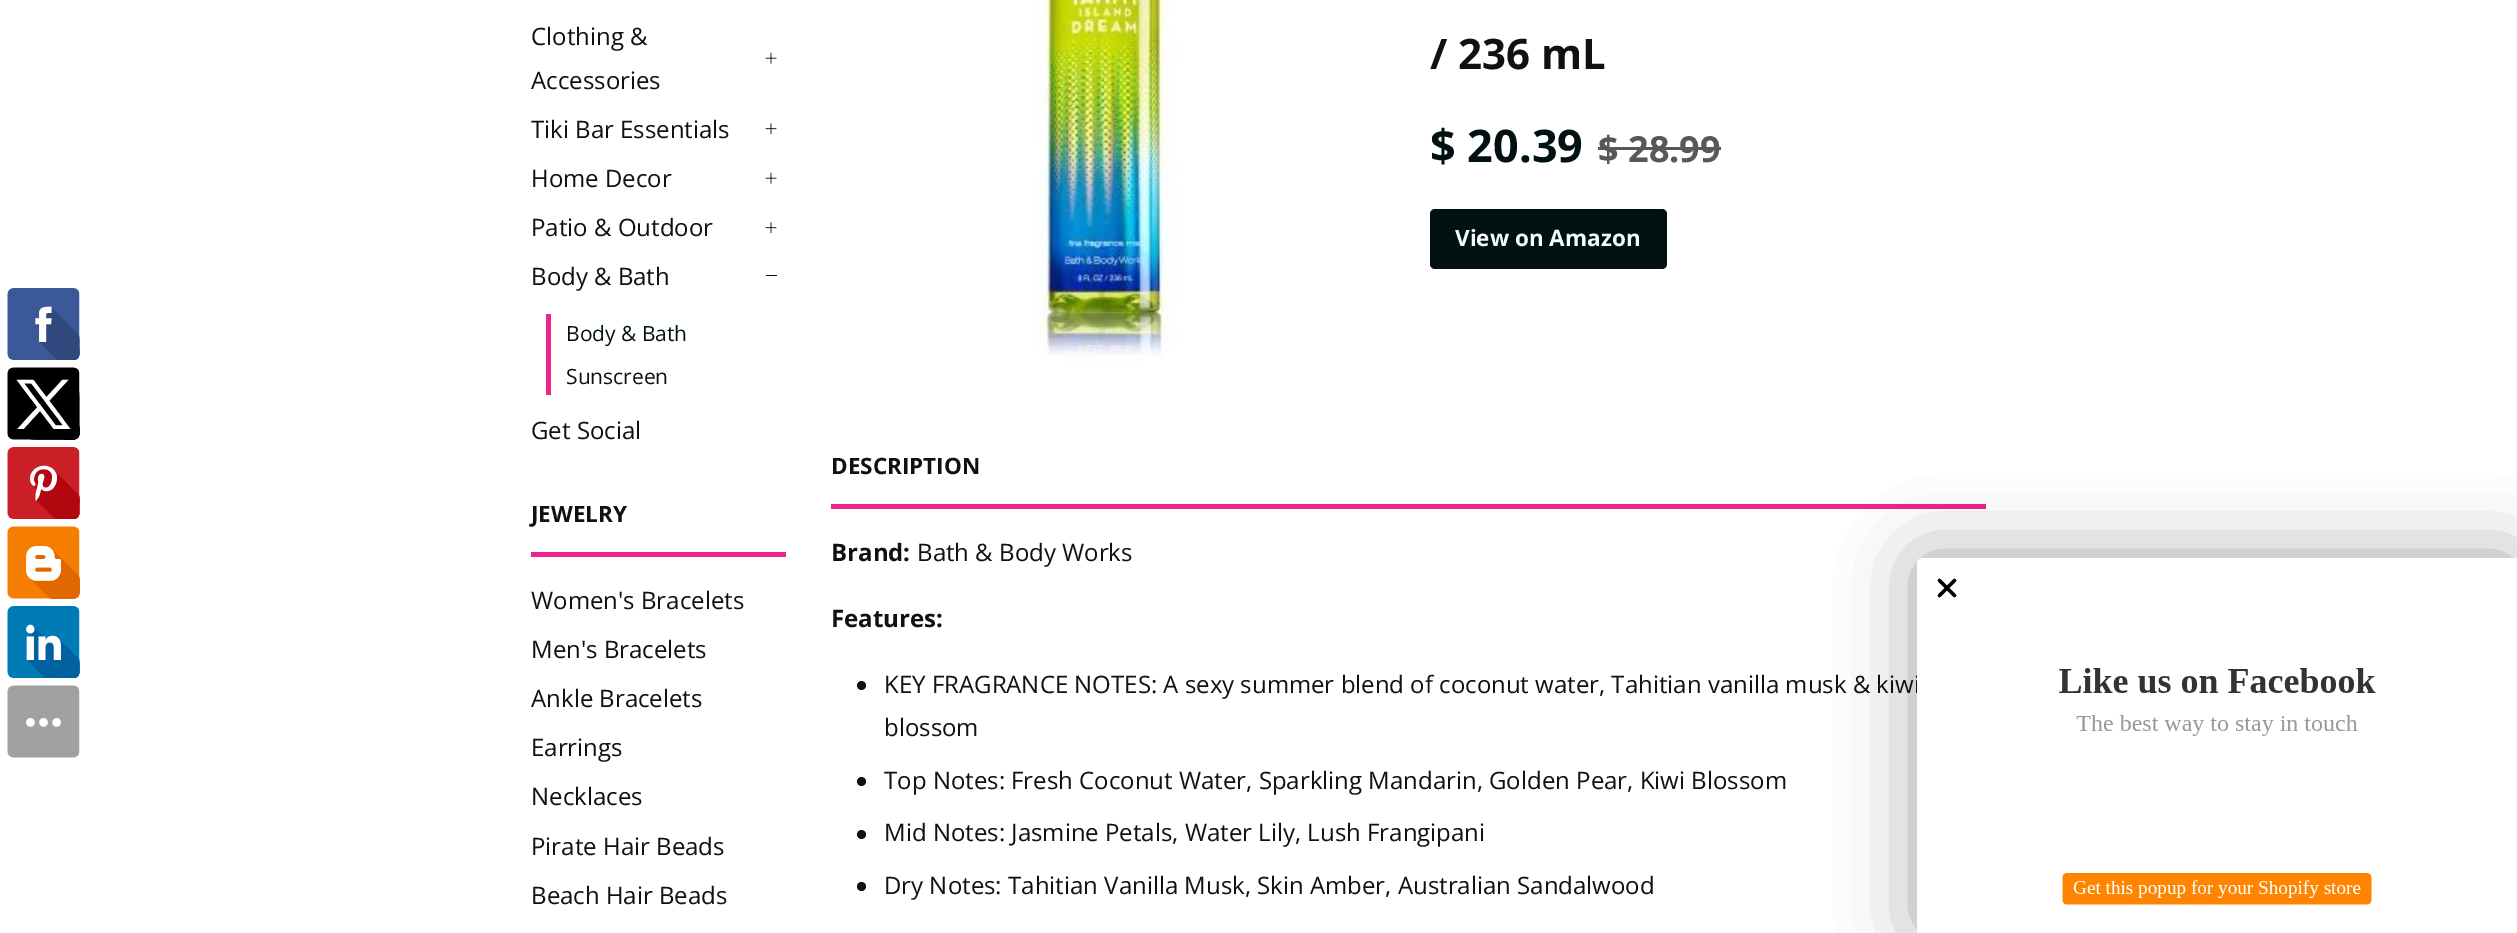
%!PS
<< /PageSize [2517 933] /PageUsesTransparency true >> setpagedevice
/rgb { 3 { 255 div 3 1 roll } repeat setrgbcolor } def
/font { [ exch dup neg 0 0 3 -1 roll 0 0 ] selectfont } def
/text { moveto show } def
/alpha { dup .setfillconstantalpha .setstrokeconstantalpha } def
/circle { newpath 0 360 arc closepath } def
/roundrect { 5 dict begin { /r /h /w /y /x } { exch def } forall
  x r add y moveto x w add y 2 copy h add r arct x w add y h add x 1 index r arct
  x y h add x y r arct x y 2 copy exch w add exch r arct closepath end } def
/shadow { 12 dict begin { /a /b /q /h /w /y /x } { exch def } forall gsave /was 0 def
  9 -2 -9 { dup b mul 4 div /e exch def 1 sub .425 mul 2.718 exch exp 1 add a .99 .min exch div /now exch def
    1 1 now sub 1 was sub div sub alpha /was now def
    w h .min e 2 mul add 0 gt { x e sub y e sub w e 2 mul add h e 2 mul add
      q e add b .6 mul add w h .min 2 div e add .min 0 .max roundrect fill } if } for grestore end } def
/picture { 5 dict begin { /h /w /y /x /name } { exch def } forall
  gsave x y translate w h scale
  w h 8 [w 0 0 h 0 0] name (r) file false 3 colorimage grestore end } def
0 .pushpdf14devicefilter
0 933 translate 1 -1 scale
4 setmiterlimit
255 255 255 rgb
0 0 2517 933 rectfill
(img_01.rgb) 7 288 73 470 picture
(img_02.rgb) 765 52 12 12 picture
(img_03.rgb) 765 123 12 12 picture
(img_02.rgb) 765 172 12 12 picture
(img_03.rgb) 765 222 12 12 picture
1 17 17 rgb
766 275 11 1 rectfill
241 34 139 rgb
546 314 5 81 rectfill
531 552 255 5 rectfill
(img_04.rgb) 1038 0 144 366 picture
88 88 88 rgb
1598 147 123 3 rectfill
1 17 17 rgb
1430 209 237 60 5 roundrect fill
241 34 139 rgb
831 504 1155 5 rectfill
17 17 17 rgb
861.5 685.5 4.5 circle fill
861.5 781.5 4.5 circle fill
861.5 834.5 4.5 circle fill
861.5 886.5 4.5 circle fill
0 0 0 rgb
1917 558 600 375 6 37.5 0.35 shadow
/OpenSans-Regular 24 font
17 17 17 rgb
(Clothing &) 531 45 text
(Accessories) 531 89 text
(Tiki Bar Essentials) 531 138 text
(Home Decor) 531 187 text
(Patio & Outdoor) 531 236 text
(Body & Bath) 531 285 text
/OpenSans-Regular 21 font
1 17 17 rgb
(Body & Bath) 566 341 text
17 17 17 rgb
(Sunscreen) 566 384 text
/OpenSans-Regular 24 font
(Get Social) 531 439 text
/OpenSans-Bold 22.5 font
(JEWELRY) 531 522 text
/OpenSans-Regular 24 font
(Women's Bracelets) 531 609 text
(Men's Bracelets) 531 658 text
(Ankle Bracelets) 531 707 text
(Earrings) 531 756 text
(Necklaces) 531 805 text
(Pirate Hair Beads) 531 855 text
(Beach Hair Beads) 531 904 text
/OpenSans-Bold 42 font
(/ 236 mL) 1430 69 text
/OpenSans-Bold 45 font
1 17 17 rgb
($ 20.39) 1430 162 text
/OpenSans-Bold 36 font
88 88 88 rgb
($ 28.99) 1598 162 text
/OpenSans-Bold 22.5 font
245 250 250 rgb
(View on Amazon) 1455 246 text
17 17 17 rgb
(DESCRIPTION) 831 474 text
/OpenSans-Bold 24 font
(Brand:) 831 561 text
/OpenSans-Regular 24 font
(Bath & Body Works) 917 561 text
/OpenSans-Bold 24 font
(Features:) 831 627 text
/OpenSans-Regular 24 font
(KEY FRAGRANCE NOTES: A sexy summer blend of coconut water, Tahitian vanilla musk & kiwi) 884 693 text
(blossom) 884 736 text
(Top Notes: Fresh Coconut Water, Sparkling Mandarin, Golden Pear, Kiwi Blossom) 884 789 text
(Mid Notes: Jasmine Petals, Water Lily, Lush Frangipani) 884 841 text
(Dry Notes: Tahitian Vanilla Musk, Skin Amber, Australian Sandalwood) 884 894 text
255 255 255 rgb
1923 558 moveto 594 0 rlineto 0 375 rlineto -600 0 rlineto 0 -369 rlineto 0 -3.5 2.5 -6 6 -6 rcurveto closepath fill
(img_05.rgb) 1937 578 439 327 picture
.poppdf14devicefilter showpage
